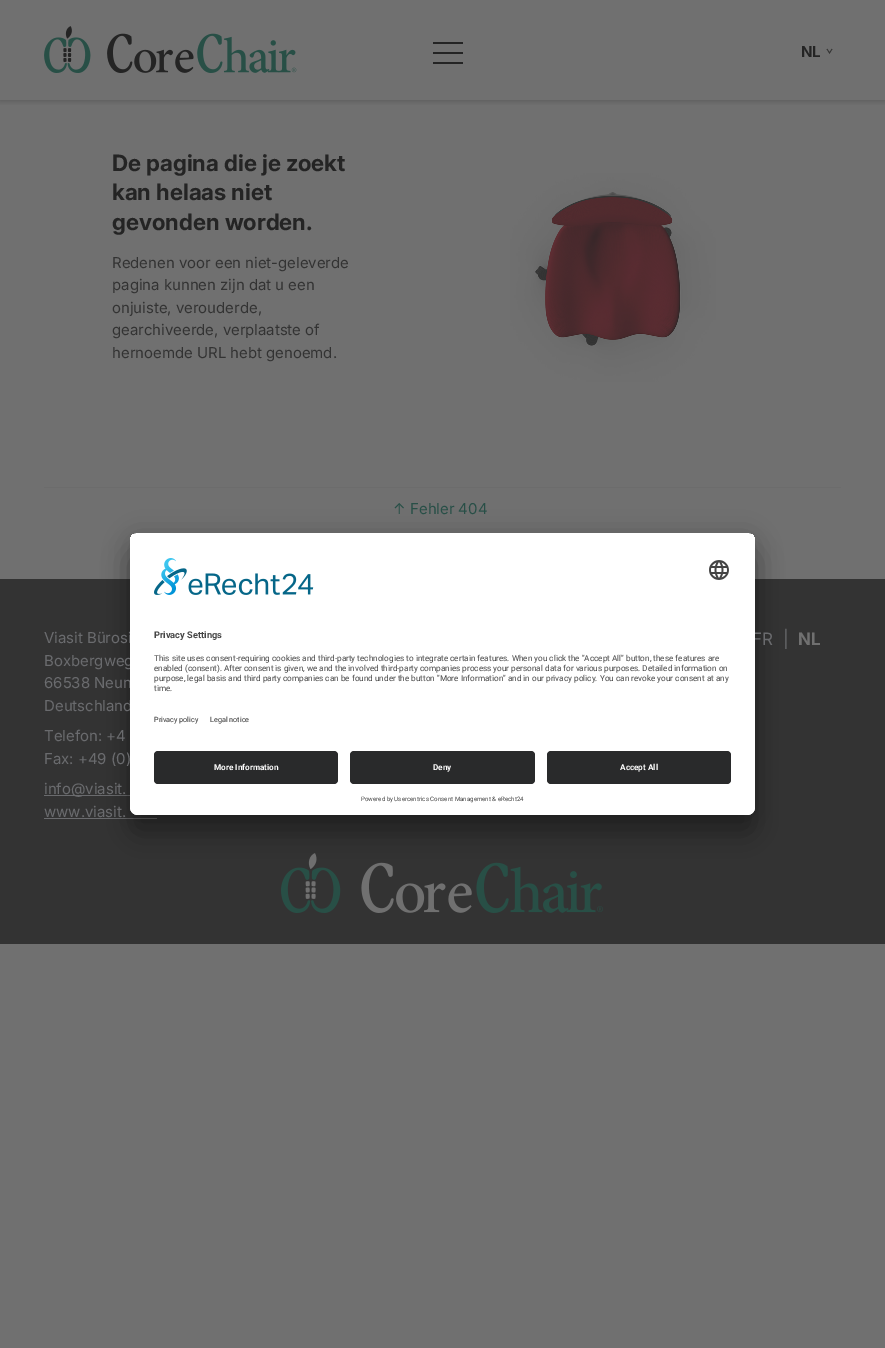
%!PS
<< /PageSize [885 1348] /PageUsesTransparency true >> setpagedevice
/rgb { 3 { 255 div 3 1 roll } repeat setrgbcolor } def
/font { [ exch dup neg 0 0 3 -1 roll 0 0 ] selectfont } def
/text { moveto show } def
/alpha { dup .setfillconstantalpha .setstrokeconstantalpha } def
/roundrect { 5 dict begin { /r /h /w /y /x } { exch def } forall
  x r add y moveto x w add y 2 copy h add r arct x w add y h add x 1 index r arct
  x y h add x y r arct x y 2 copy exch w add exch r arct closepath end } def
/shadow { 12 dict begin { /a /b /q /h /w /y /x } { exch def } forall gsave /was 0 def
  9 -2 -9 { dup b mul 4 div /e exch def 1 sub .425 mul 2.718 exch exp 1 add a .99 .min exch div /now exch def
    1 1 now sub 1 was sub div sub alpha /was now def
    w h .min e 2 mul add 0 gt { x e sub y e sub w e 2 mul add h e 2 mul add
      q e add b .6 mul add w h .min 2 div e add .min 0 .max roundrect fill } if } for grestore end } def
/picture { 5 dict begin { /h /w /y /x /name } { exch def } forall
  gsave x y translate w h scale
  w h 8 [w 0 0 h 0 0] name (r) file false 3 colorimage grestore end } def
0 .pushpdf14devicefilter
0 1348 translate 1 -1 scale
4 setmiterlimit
112 112 112 rgb
0 0 885 1348 rectfill
gsave
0 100 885 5 rectclip
36 36 36 rgb
0 1 885 100 0 3 0.3 shadow
grestore
(img_01.rgb) 44 26 253 47 picture
36 36 36 rgb
433 52 30 2 rectfill
433 42 30 2 rectfill
433 62 30 2 rectfill
54 54 53 rgb
0.8 setlinewidth
827 49 moveto 2.5 4 rlineto 2.5 -4 rlineto stroke
(img_02.rgb) 510 173 206 209 picture
108 108 108 rgb
44 487 797 1 rectfill
51 51 51 rgb
0 579 885 365 rectfill
106 107 110 rgb
44 795 86 1 rectfill
44 818 113 1 rectfill
(img_03.rgb) 281 853 322 60 picture
0 0 0 rgb
130 553 625 282 8 14 0.3 shadow
130 538 625 282 8 13 0.22 shadow
/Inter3-Bold 15 font
36 36 36 rgb
(NL) 801 57 text
/Inter-Bold 22.5 font
(De pagina die je zoekt) 112 171 text
(kan helaas niet) 112 200 text
(gevonden worden.) 112 230 text
/Inter-Regular 15 font
51 51 51 rgb
(Redenen voor een niet-geleverde) 112 268 text
(pagina kunnen zijn dat u een) 112 290 text
(onjuiste, verouderde,) 112 313 text
(gearchiveerde, verplaatste of) 112 335 text
(hernoemde URL hebt genoemd.) 112 358 text
40 79 71 rgb
(↑) 393 514 text
(Fehler 404) 410 514 text
106 107 110 rgb
(Viasit Bürosi) 44 643 text
(Boxbergweg) 44 666 text
(66538 Neun) 44 688 text
(Deutschland) 44 711 text
(Telefon: +4) 44 741 text
(Fax: +49 \(0\)) 44 764 text
(info@viasit.) 44 794 text
(www.viasit.) 44 817 text
/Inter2-Regular 17 font
(FR) 752 645 text
(|) 783 645 text
/Inter2-Bold 17 font
112 112 112 rgb
(NL) 798 645 text
255 255 255 rgb
130 533 625 282 8 roundrect fill
gsave
130 533 625 282 8 roundrect clip newpath
138 533 moveto 609 0 rlineto 4.5 0 8 3.5 8 8 rcurveto 0 202 rlineto -625 0 rlineto 0 -202 rlineto 0 -4.5 3.5 -8 8 -8 rcurveto closepath clip newpath
130 534 625 209 rectfill
grestore
(img_04.rgb) 154 558 160 37 picture
(img_05.rgb) 709 560 20 20 picture
/Roboto-Bold 9.25 font
68 68 68 rgb
(Privacy Settings) 154 638 text
/Roboto-Regular 8.2 font
(This site uses consent-requiring cookies and third-party technologies to integrate certain features. When you click the "Accept All" button, these features are) 154 661 text
(enabled \(consent\). After consent is given, we and the involved third-party companies process your personal data for various purposes. Detailed information on) 154 671 text
(purpose, legal basis and third party companies can be found under the button "More Information" and in our privacy policy. You can revoke your consent at any) 154 681 text
(time.) 154 691 text
/Roboto-Regular 7.25 font
51 51 51 rgb
(Privacy policy) 154 722 text
(Legal notice) 210 722 text
255 255 255 rgb
130 743 moveto 625 0 rlineto 0 64 rlineto 0 4.5 -3.5 8 -8 8 rcurveto -609 0 rlineto -4.5 0 -8 -3.5 -8 -8 rcurveto closepath fill
41 42 43 rgb
154 751 184 33 4 roundrect fill
/Roboto-Bold 8.2 font
255 255 255 rgb
(More Information) 214 770 text
41 42 43 rgb
350 751 185 33 4 roundrect fill
255 255 255 rgb
(Deny) 433 770 text
41 42 43 rgb
547 751 184 33 4 roundrect fill
255 255 255 rgb
(Accept All) 620 770 text
/Roboto-Regular 6.15 font
68 68 68 rgb
(Powered by Usercentrics Consent Management & eRecht24) 361 801 text
.poppdf14devicefilter showpage
